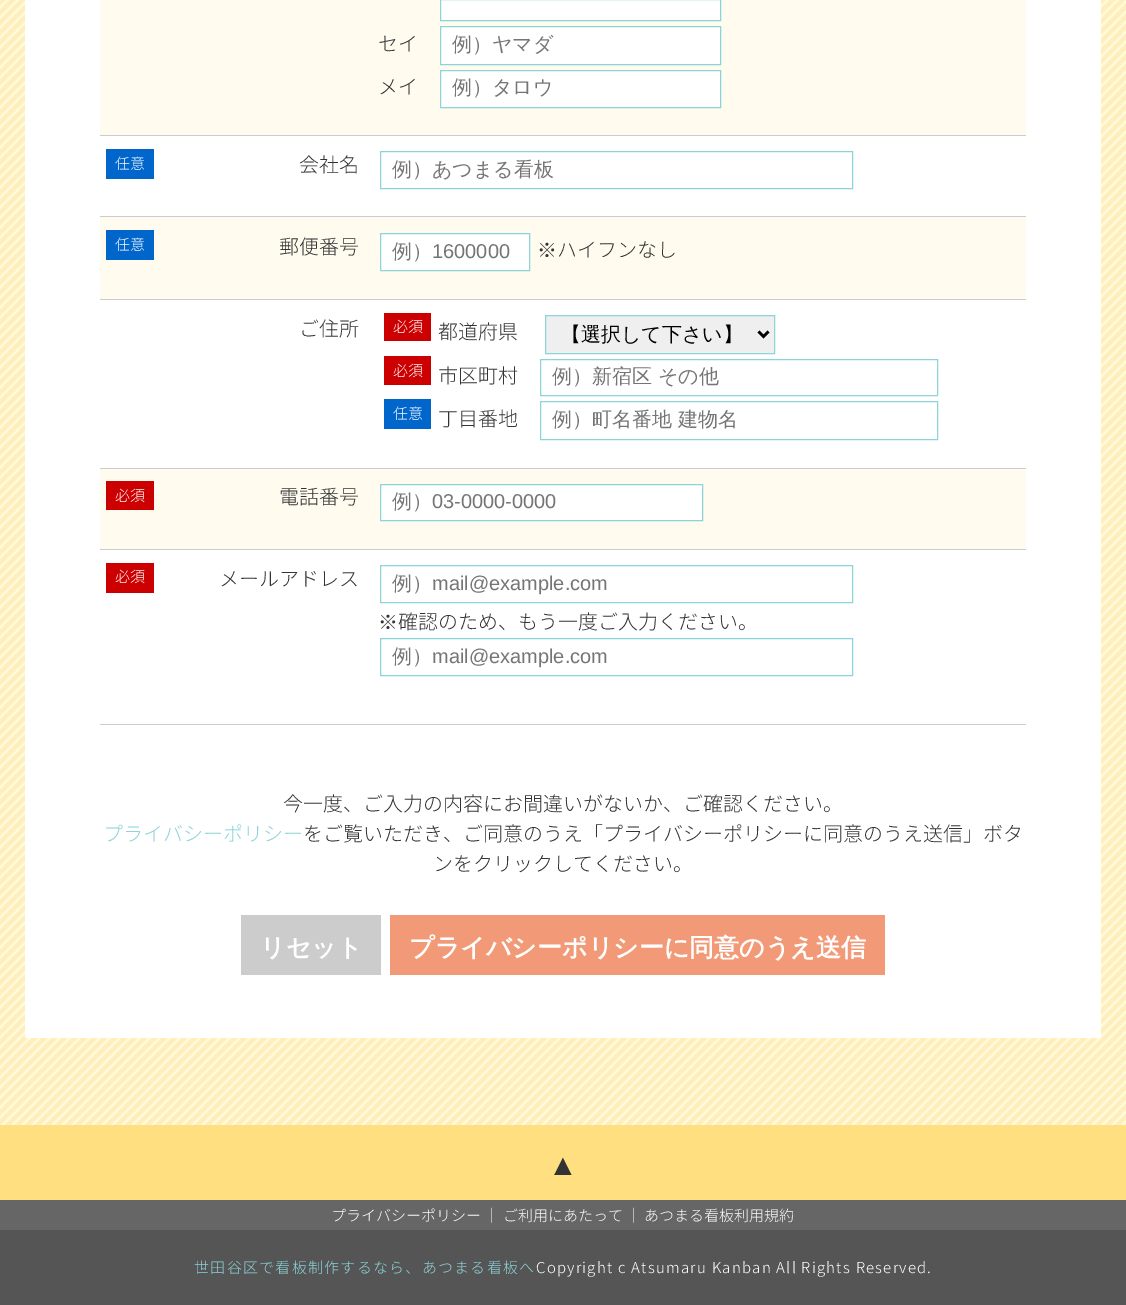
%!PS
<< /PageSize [1126 1305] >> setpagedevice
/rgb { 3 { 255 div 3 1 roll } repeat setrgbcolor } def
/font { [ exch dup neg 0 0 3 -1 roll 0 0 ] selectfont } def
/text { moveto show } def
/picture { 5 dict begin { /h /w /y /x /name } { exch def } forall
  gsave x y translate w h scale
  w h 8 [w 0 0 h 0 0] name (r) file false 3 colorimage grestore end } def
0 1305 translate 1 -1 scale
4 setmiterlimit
255 255 255 rgb
0 0 1126 1305 rectfill
(img_01.rgb) 0 0 1126 1125 picture
25 0 1076 1038 rectfill
255 251 239 rgb
100 0 926 135 rectfill
255 255 255 rgb
440.5 -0.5 moveto 280 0 rlineto 0 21 rlineto -280 0 rlineto closepath gsave fill grestore
140 212 218 rgb
stroke
255 255 255 rgb
440.5 26.5 moveto 280 0 rlineto 0 38 rlineto -280 0 rlineto closepath gsave fill grestore
140 212 218 rgb
stroke
255 255 255 rgb
440.5 70.5 moveto 280 0 rlineto 0 37 rlineto -280 0 rlineto closepath gsave fill grestore
140 212 218 rgb
stroke
0 102 204 rgb
106 149 48 30 rectfill
204 204 204 rgb
100 135 926 1 rectfill
140 212 218 rgb
380.5 151.5 472 37 rectstroke
255 251 239 rgb
100 217 926 82 rectfill
0 102 204 rgb
106 230 48 30 rectfill
204 204 204 rgb
100 216 926 1 rectfill
255 255 255 rgb
380.5 233.5 moveto 149 0 rlineto 0 37 rlineto -149 0 rlineto closepath gsave fill grestore
140 212 218 rgb
stroke
204 204 204 rgb
100 299 926 1 rectfill
204 0 0 rgb
384 313 47 28 rectfill
239 239 239 rgb
545.5 315.5 moveto 229 0 rlineto 0 38 rlineto -229 0 rlineto closepath gsave fill grestore
140 212 218 rgb
stroke
0 0 0 rgb
2.5 setlinewidth
758.5 331.5 moveto 5 5 rlineto 5 -5 rlineto stroke
204 0 0 rgb
384 356 47 29 rectfill
140 212 218 rgb
1 setlinewidth
540.5 359.5 397 36 rectstroke
0 102 204 rgb
384 399 47 30 rectfill
140 212 218 rgb
540.5 401.5 397 38 rectstroke
255 251 239 rgb
100 469 926 80 rectfill
204 0 0 rgb
106 481 48 29 rectfill
204 204 204 rgb
100 468 926 1 rectfill
255 255 255 rgb
380.5 484.5 moveto 322 0 rlineto 0 36 rlineto -322 0 rlineto closepath gsave fill grestore
140 212 218 rgb
stroke
204 0 0 rgb
106 563 48 30 rectfill
204 204 204 rgb
100 549 926 1 rectfill
140 212 218 rgb
380.5 565.5 472 37 rectstroke
380.5 638.5 472 37 rectstroke
204 204 204 rgb
100 724 926 1 rectfill
241 915 140 60 rectfill
242 154 119 rgb
390 915 495 60 rectfill
255 223 128 rgb
0 1125 1126 75 rectfill
102 102 102 rgb
0 1200 1126 30 rectfill
85 85 85 rgb
0 1230 1126 75 rectfill
/NotoSansJP-Light 20 font
51 51 51 rgb
(セイ) 378 51 text
/WenQuanYiZenHei-Medium 20 font
117 117 117 rgb
(例）ヤマダ) 452 51 text
/NotoSansJP-Light 20 font
51 51 51 rgb
(メイ) 378 94 text
/WenQuanYiZenHei-Medium 20 font
117 117 117 rgb
(例）タロウ) 452 94 text
/NotoSansJP-Light 15 font
255 255 255 rgb
(任意) 115 169 text
/NotoSansJP-Light 20 font
51 51 51 rgb
(会社名) 299 172 text
/WenQuanYiZenHei-Medium 20 font
117 117 117 rgb
(例）あつまる看板) 392 176 text
/NotoSansJP-Light 15 font
255 255 255 rgb
(任意) 115 250 text
/NotoSansJP-Light 20 font
51 51 51 rgb
(郵便番号) 279 254 text
/WenQuanYiZenHei-Medium 20 font
117 117 117 rgb
(例）) 392 258 text
/LiberationSans-Regular 20 font
(1600000) 432 258 text
/WenQuanYiZenHei-Medium 20 font
51 51 51 rgb
(※) 537 257 text
/NotoSansJP-Light 20 font
(ハイフンなし) 557 257 text
(ご住所) 299 336 text
/NotoSansJP-Light 15 font
255 255 255 rgb
(必須) 393 332 text
/NotoSansJP-Light 20 font
51 51 51 rgb
(都道府県) 438 339 text
/WenQuanYiZenHei-Medium 20 font
0 0 0 rgb
(【選択して下さい】) 561 341 text
/NotoSansJP-Light 15 font
255 255 255 rgb
(必須) 393 376 text
/NotoSansJP-Light 20 font
51 51 51 rgb
(市区町村) 438 383 text
/WenQuanYiZenHei-Medium 20 font
117 117 117 rgb
(例）新宿区 その他) 552 383 text
/NotoSansJP-Light 15 font
255 255 255 rgb
(任意) 393 419 text
/NotoSansJP-Light 20 font
51 51 51 rgb
(丁目番地) 438 426 text
/WenQuanYiZenHei-Medium 20 font
117 117 117 rgb
(例）町名番地 建物名) 552 426 text
/NotoSansJP-Light 15 font
255 255 255 rgb
(必須) 115 501 text
/NotoSansJP-Light 20 font
51 51 51 rgb
(電話番号) 279 504 text
/WenQuanYiZenHei-Medium 20 font
117 117 117 rgb
(例）) 392 508 text
/LiberationSans-Regular 20 font
(03-0000-0000) 432 508 text
/NotoSansJP-Light 15 font
255 255 255 rgb
(必須) 115 582 text
/NotoSansJP-Light 20 font
51 51 51 rgb
(メールアドレス) 219 586 text
/WenQuanYiZenHei-Medium 20 font
117 117 117 rgb
(例）) 392 590 text
/LiberationSans-Regular 20 font
(mail@example.com) 432 590 text
/WenQuanYiZenHei-Medium 20 font
51 51 51 rgb
(※) 378 629 text
/NotoSansJP-Light 20 font
(確認のため、もう一度ご入力ください。) 398 629 text
/WenQuanYiZenHei-Medium 20 font
117 117 117 rgb
(例）) 392 663 text
/LiberationSans-Regular 20 font
(mail@example.com) 432 663 text
/NotoSansJP-Light 20 font
51 51 51 rgb
(今一度、ご入力の内容にお間違いがないか、ご確認ください。) 283 811 text
140 212 218 rgb
(プライバシーポリシー) 103 841 text
51 51 51 rgb
(をご覧いただき、ご同意のうえ「プライバシーポリシーに同意のうえ送信」ボタ) 303 841 text
(ンをクリックしてください。) 433 871 text
/WenQuanYiZenHei-Bold 25 font
255 255 255 rgb
(リセット) 260 956 text
(プライバシーポリシーに同意のうえ送信) 409 956 text
/LiberationSans-Regular 30 font
51 51 51 rgb
(▲) 548 1175 text
/NotoSansJP-Light 15 font
255 255 255 rgb
(プライバシーポリシー ｜ ご利用にあたって ｜ あつまる看板利用規約) 331 1221 text
140 212 218 rgb
194 1273 moveto 1.25 0 (世田谷区で看板制作するなら、あつまる看板へ) ashow
255 255 255 rgb
536 1273 moveto 1.25 0 (Copyright c Atsumaru Kanban All Rights Reserved.) ashow
showpage
